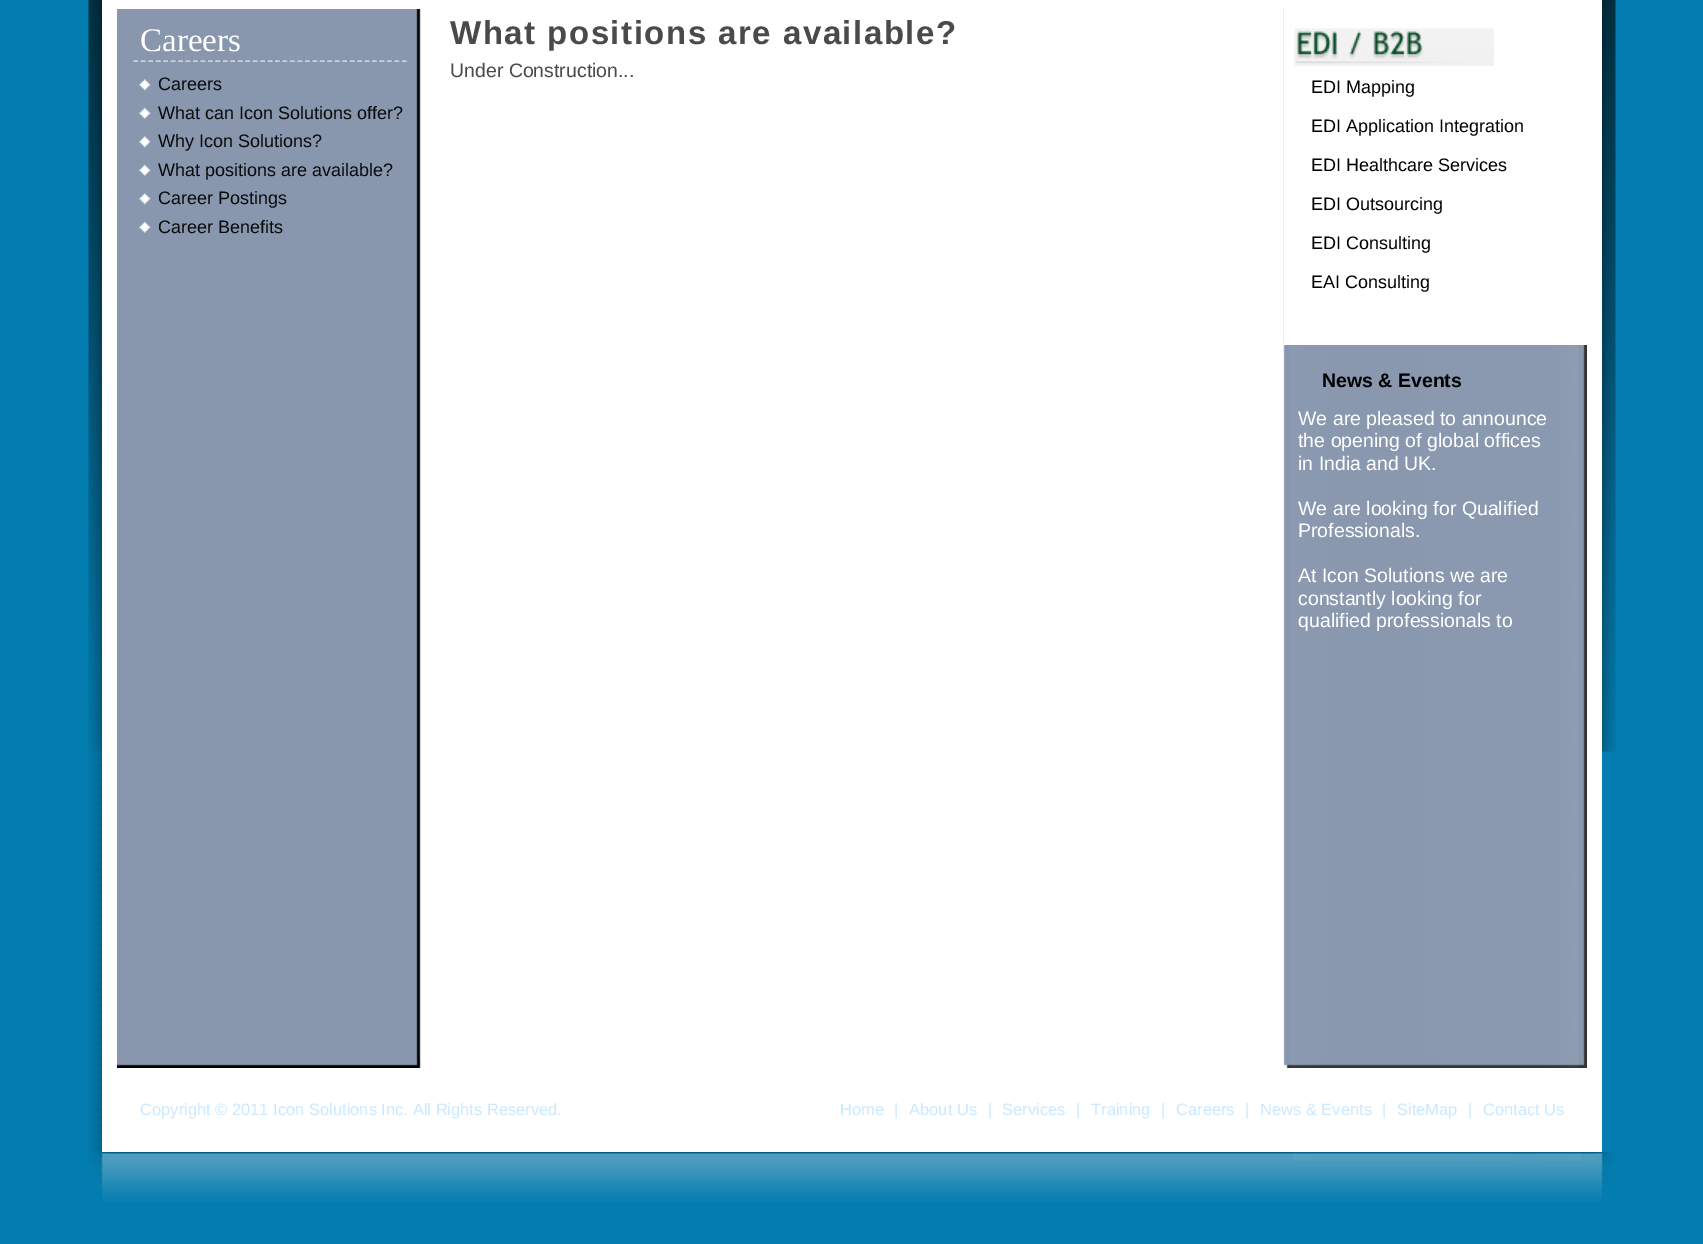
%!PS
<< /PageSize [1703 1244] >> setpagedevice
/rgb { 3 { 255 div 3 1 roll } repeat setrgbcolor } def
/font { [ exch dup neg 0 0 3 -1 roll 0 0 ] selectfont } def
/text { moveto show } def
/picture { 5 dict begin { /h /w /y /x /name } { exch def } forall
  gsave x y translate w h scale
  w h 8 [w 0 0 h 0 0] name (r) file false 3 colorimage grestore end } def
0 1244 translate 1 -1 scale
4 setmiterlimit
3 125 176 rgb
0 0 1703 1244 rectfill
(img_01.rgb) 88 0 14 1152 picture
(img_02.rgb) 88 0 14 751 picture
255 255 255 rgb
102 0 1500 1152 rectfill
(img_03.rgb) 117 9 1470 1059 picture
204 210 219 rgb
1.5 setlinewidth
[4.5 2.96] 0 setdash
133.5 61 moveto 273 0 rlineto stroke
(img_04.rgb) 139 79 12 12 picture
(img_05.rgb) 139 107 12 12 picture
(img_04.rgb) 139 136 12 12 picture
(img_05.rgb) 139 164 12 12 picture
(img_04.rgb) 139 193 12 12 picture
(img_05.rgb) 139 221 12 12 picture
255 255 255 rgb
1284 9 303 336 rectfill
(img_06.rgb) 1294 28 200 38 picture
(img_07.rgb) 117 1059 1468 9 picture
(img_08.rgb) 1602 0 14 752 picture
(img_09.rgb) 89 1152 1526 50 picture
/LiberationSerif-Regular 33 font
(Careers) 140 51 text
/LiberationSans-Regular 18 font
9 10 11 rgb
(Careers) 158 90 text
(What can Icon Solutions offer?) 158 119 text
(Why Icon Solutions?) 158 147 text
(What positions are available?) 158 176 text
(Career Postings) 158 204 text
(Career Benefits) 158 233 text
/LiberationSans-Bold 33 font
74 74 74 rgb
450 44 moveto 1.5 0 (What positions are available?) ashow
/LiberationSans-Regular 19.5 font
(Under Construction...) 450 77 text
/LiberationSans-Regular 18 font
0 0 0 rgb
(EDI Mapping) 1311 93 text
(EDI Application Integration) 1311 132 text
(EDI Healthcare Services) 1311 171 text
(EDI Outsourcing) 1311 210 text
(EDI Consulting) 1311 249 text
(EAI Consulting) 1311 288 text
/LiberationSans-Bold 19.5 font
(News & Events) 1322 387 text
/LiberationSans-Regular 19.5 font
255 255 255 rgb
(We are pleased to announce) 1298 425 text
(the opening of global offices) 1298 447 text
(in India and UK.) 1298 470 text
(We are looking for Qualified) 1298 515 text
(Professionals.) 1298 537 text
(At Icon Solutions we are) 1298 582 text
(constantly looking for) 1298 605 text
(qualified professionals to) 1298 627 text
/LiberationSans-Regular 16.5 font
202 233 255 rgb
(Copyright © 2011 Icon Solutions Inc. All Rights Reserved.) 140 1115 text
(Home) 840 1115 text
(|) 894 1115 text
(About Us) 909 1115 text
(|) 988 1115 text
(Services) 1002 1115 text
(|) 1076 1115 text
(Training) 1091 1115 text
(|) 1161 1115 text
(Careers) 1176 1115 text
(|) 1245 1115 text
(News & Events) 1260 1115 text
(|) 1382 1115 text
(SiteMap) 1397 1115 text
(|) 1468 1115 text
(Contact Us) 1483 1115 text
showpage
